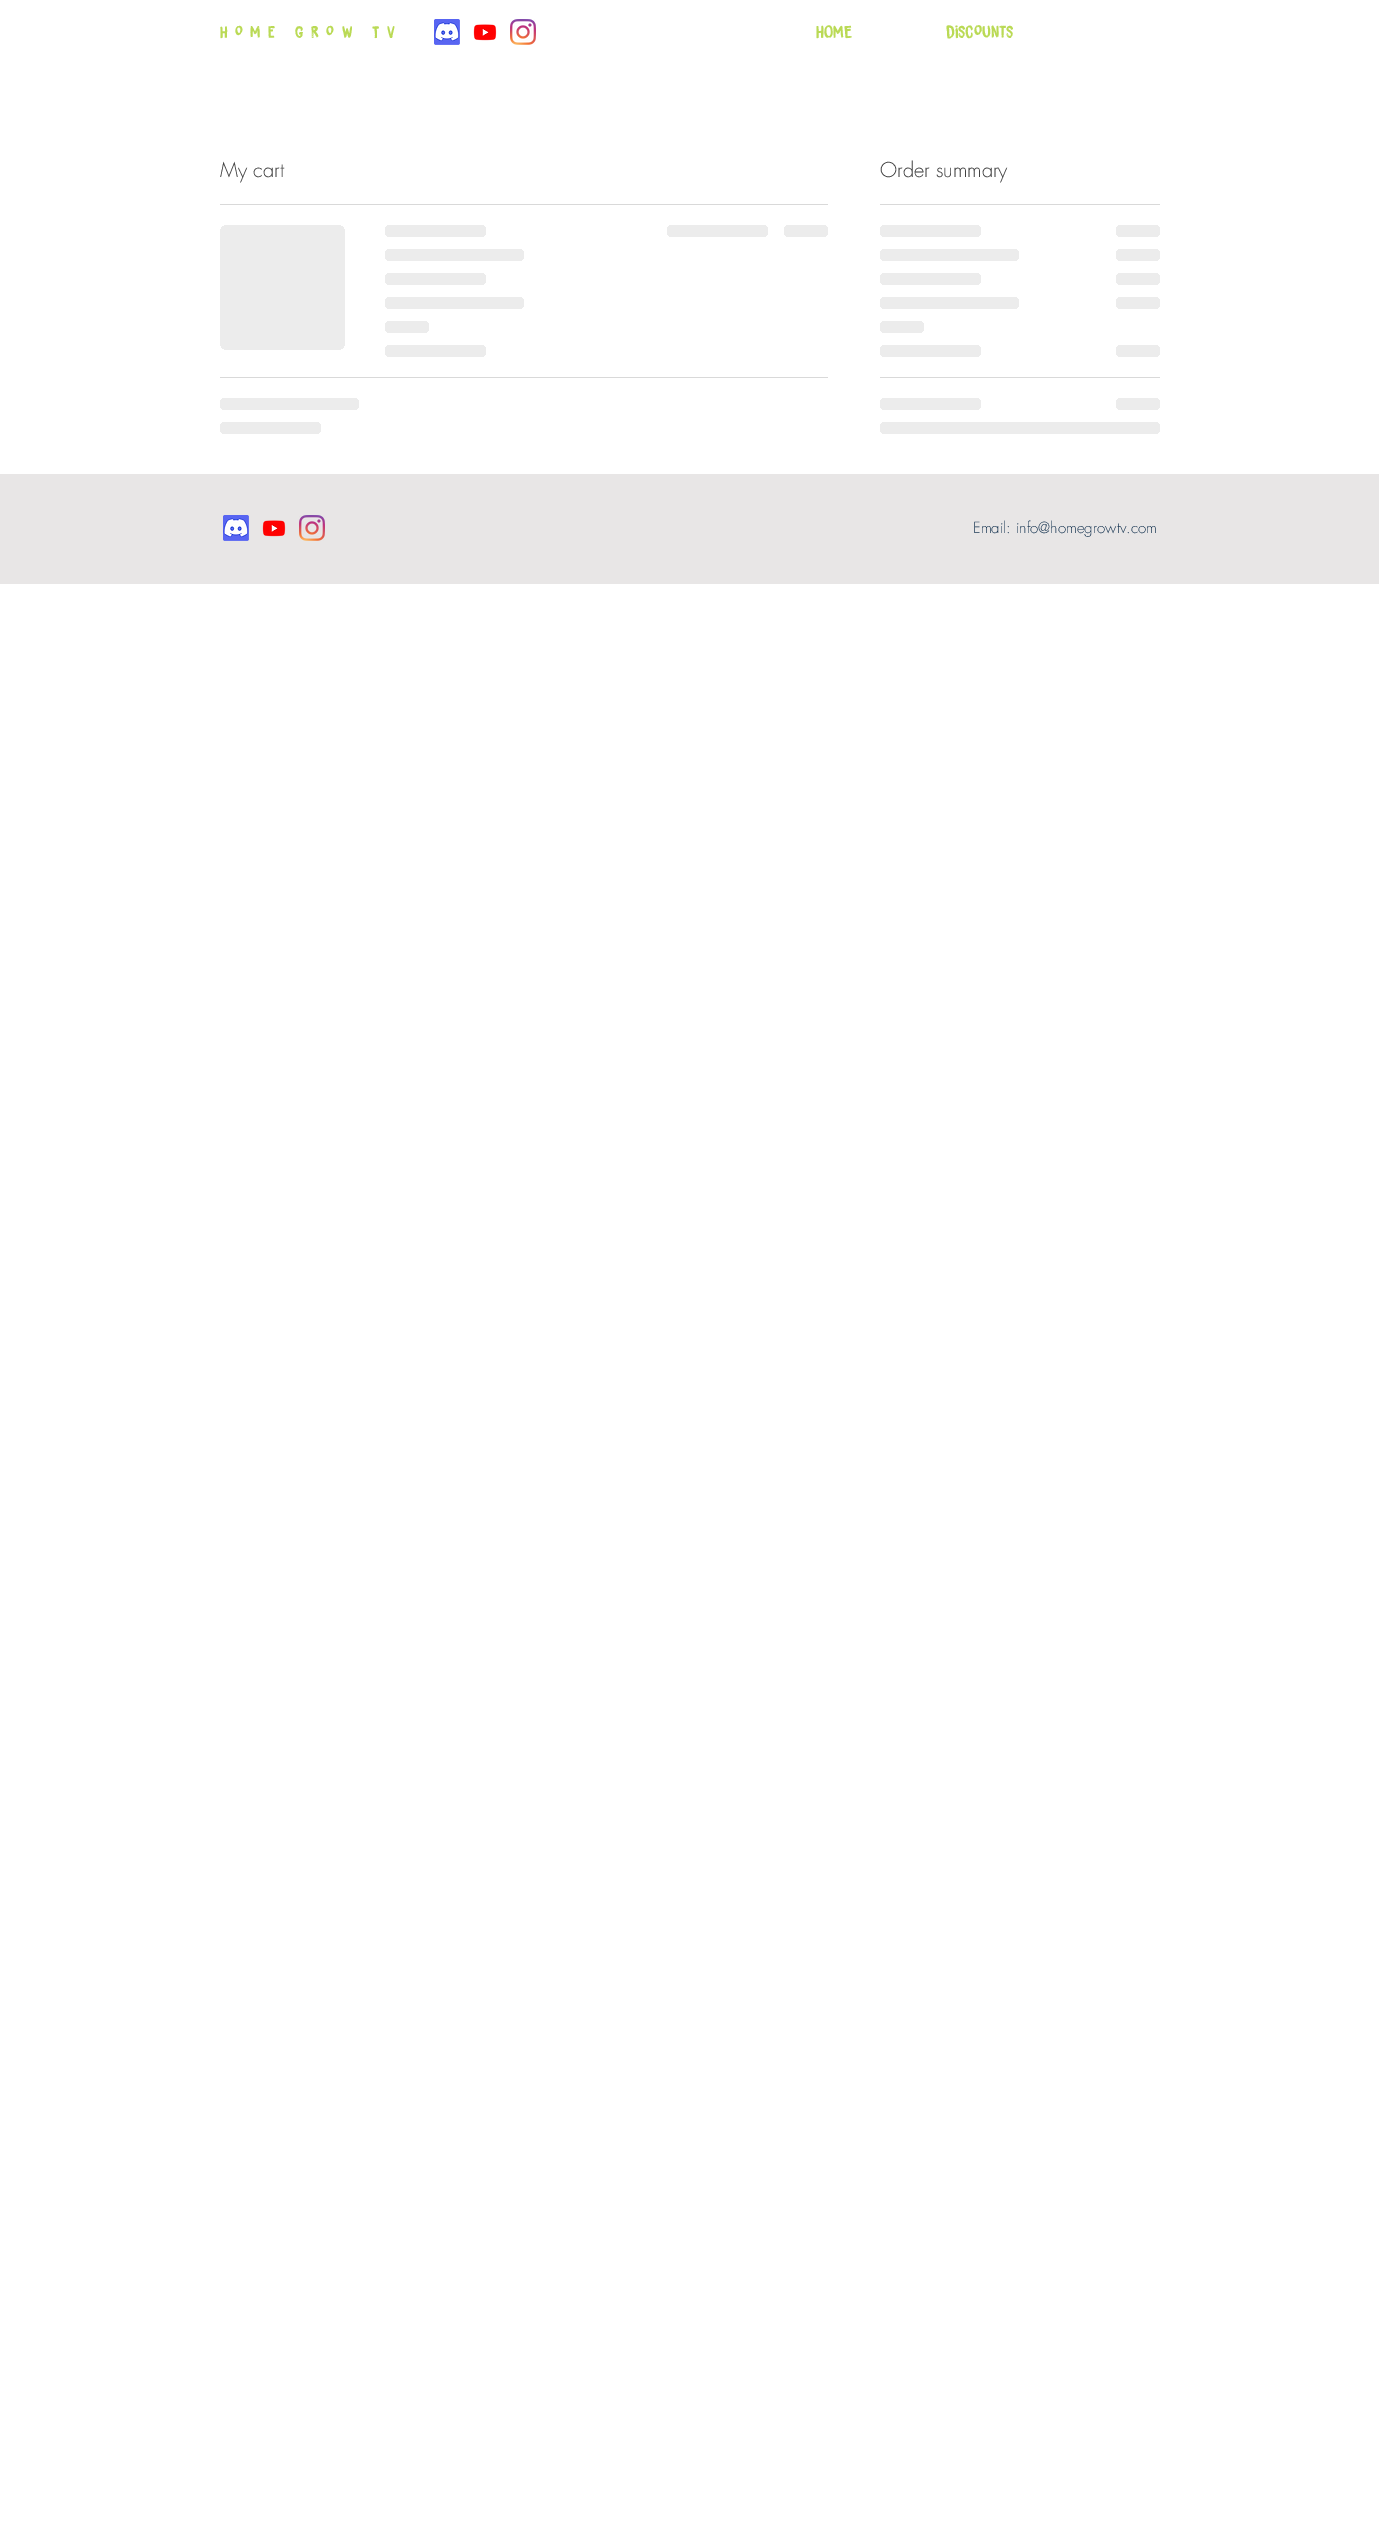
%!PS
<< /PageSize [1379 2531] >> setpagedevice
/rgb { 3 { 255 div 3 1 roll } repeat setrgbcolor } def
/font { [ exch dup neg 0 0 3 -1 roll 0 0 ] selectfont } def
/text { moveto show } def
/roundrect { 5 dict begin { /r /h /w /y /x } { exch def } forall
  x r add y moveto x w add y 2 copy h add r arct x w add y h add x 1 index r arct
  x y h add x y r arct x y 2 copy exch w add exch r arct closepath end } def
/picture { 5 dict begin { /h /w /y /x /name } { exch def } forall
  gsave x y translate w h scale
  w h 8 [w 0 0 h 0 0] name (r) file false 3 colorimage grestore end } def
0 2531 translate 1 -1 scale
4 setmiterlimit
255 255 255 rgb
0 0 1379 2531 rectfill
(img_01.rgb) 434 19 26 26 picture
(img_02.rgb) 473 24 24 17 picture
(img_03.rgb) 510 19 26 26 picture
217 217 217 rgb
220 204 608 1 rectfill
gsave 220 225 125 125 8 roundrect clip newpath
<< /ShadingType 2 /ColorSpace /DeviceRGB /Coords [220 288 720 288] /Extend [true true] /Function << /FunctionType 3 /Domain [0 1] /Functions [<< /FunctionType 2 /Domain [0 1] /C0 [0.925 0.925 0.925] /C1 [0.925 0.925 0.925] /N 1 >> << /FunctionType 2 /Domain [0 1] /C0 [0.925 0.925 0.925] /C1 [0.851 0.851 0.851] /N 1 >> << /FunctionType 2 /Domain [0 1] /C0 [0.851 0.851 0.851] /C1 [0.925 0.925 0.925] /N 1 >> << /FunctionType 2 /Domain [0 1] /C0 [0.925 0.925 0.925] /C1 [0.925 0.925 0.925] /N 1 >>] /Bounds [0.25 0.37 0.63] /Encode [0 1 0 1 0 1 0 1] >> >> shfill grestore
gsave 385 225 101 12 6 roundrect clip newpath
<< /ShadingType 2 /ColorSpace /DeviceRGB /Coords [385 231 789 231] /Extend [true true] /Function << /FunctionType 3 /Domain [0 1] /Functions [<< /FunctionType 2 /Domain [0 1] /C0 [0.925 0.925 0.925] /C1 [0.925 0.925 0.925] /N 1 >> << /FunctionType 2 /Domain [0 1] /C0 [0.925 0.925 0.925] /C1 [0.851 0.851 0.851] /N 1 >> << /FunctionType 2 /Domain [0 1] /C0 [0.851 0.851 0.851] /C1 [0.925 0.925 0.925] /N 1 >> << /FunctionType 2 /Domain [0 1] /C0 [0.925 0.925 0.925] /C1 [0.925 0.925 0.925] /N 1 >>] /Bounds [0.25 0.37 0.63] /Encode [0 1 0 1 0 1 0 1] >> >> shfill grestore
gsave 385 249 139 12 6 roundrect clip newpath
<< /ShadingType 2 /ColorSpace /DeviceRGB /Coords [385 255 941 255] /Extend [true true] /Function << /FunctionType 3 /Domain [0 1] /Functions [<< /FunctionType 2 /Domain [0 1] /C0 [0.925 0.925 0.925] /C1 [0.925 0.925 0.925] /N 1 >> << /FunctionType 2 /Domain [0 1] /C0 [0.925 0.925 0.925] /C1 [0.851 0.851 0.851] /N 1 >> << /FunctionType 2 /Domain [0 1] /C0 [0.851 0.851 0.851] /C1 [0.925 0.925 0.925] /N 1 >> << /FunctionType 2 /Domain [0 1] /C0 [0.925 0.925 0.925] /C1 [0.925 0.925 0.925] /N 1 >>] /Bounds [0.25 0.37 0.63] /Encode [0 1 0 1 0 1 0 1] >> >> shfill grestore
gsave 385 273 101 12 6 roundrect clip newpath
<< /ShadingType 2 /ColorSpace /DeviceRGB /Coords [385 279 789 279] /Extend [true true] /Function << /FunctionType 3 /Domain [0 1] /Functions [<< /FunctionType 2 /Domain [0 1] /C0 [0.925 0.925 0.925] /C1 [0.925 0.925 0.925] /N 1 >> << /FunctionType 2 /Domain [0 1] /C0 [0.925 0.925 0.925] /C1 [0.851 0.851 0.851] /N 1 >> << /FunctionType 2 /Domain [0 1] /C0 [0.851 0.851 0.851] /C1 [0.925 0.925 0.925] /N 1 >> << /FunctionType 2 /Domain [0 1] /C0 [0.925 0.925 0.925] /C1 [0.925 0.925 0.925] /N 1 >>] /Bounds [0.25 0.37 0.63] /Encode [0 1 0 1 0 1 0 1] >> >> shfill grestore
gsave 385 297 139 12 6 roundrect clip newpath
<< /ShadingType 2 /ColorSpace /DeviceRGB /Coords [385 303 941 303] /Extend [true true] /Function << /FunctionType 3 /Domain [0 1] /Functions [<< /FunctionType 2 /Domain [0 1] /C0 [0.925 0.925 0.925] /C1 [0.925 0.925 0.925] /N 1 >> << /FunctionType 2 /Domain [0 1] /C0 [0.925 0.925 0.925] /C1 [0.851 0.851 0.851] /N 1 >> << /FunctionType 2 /Domain [0 1] /C0 [0.851 0.851 0.851] /C1 [0.925 0.925 0.925] /N 1 >> << /FunctionType 2 /Domain [0 1] /C0 [0.925 0.925 0.925] /C1 [0.925 0.925 0.925] /N 1 >>] /Bounds [0.25 0.37 0.63] /Encode [0 1 0 1 0 1 0 1] >> >> shfill grestore
gsave 385 321 44 12 6 roundrect clip newpath
<< /ShadingType 2 /ColorSpace /DeviceRGB /Coords [385 327 561 327] /Extend [true true] /Function << /FunctionType 3 /Domain [0 1] /Functions [<< /FunctionType 2 /Domain [0 1] /C0 [0.925 0.925 0.925] /C1 [0.925 0.925 0.925] /N 1 >> << /FunctionType 2 /Domain [0 1] /C0 [0.925 0.925 0.925] /C1 [0.851 0.851 0.851] /N 1 >> << /FunctionType 2 /Domain [0 1] /C0 [0.851 0.851 0.851] /C1 [0.925 0.925 0.925] /N 1 >> << /FunctionType 2 /Domain [0 1] /C0 [0.925 0.925 0.925] /C1 [0.925 0.925 0.925] /N 1 >>] /Bounds [0.25 0.37 0.63] /Encode [0 1 0 1 0 1 0 1] >> >> shfill grestore
gsave 385 345 101 12 6 roundrect clip newpath
<< /ShadingType 2 /ColorSpace /DeviceRGB /Coords [385 351 789 351] /Extend [true true] /Function << /FunctionType 3 /Domain [0 1] /Functions [<< /FunctionType 2 /Domain [0 1] /C0 [0.925 0.925 0.925] /C1 [0.925 0.925 0.925] /N 1 >> << /FunctionType 2 /Domain [0 1] /C0 [0.925 0.925 0.925] /C1 [0.851 0.851 0.851] /N 1 >> << /FunctionType 2 /Domain [0 1] /C0 [0.851 0.851 0.851] /C1 [0.925 0.925 0.925] /N 1 >> << /FunctionType 2 /Domain [0 1] /C0 [0.925 0.925 0.925] /C1 [0.925 0.925 0.925] /N 1 >>] /Bounds [0.25 0.37 0.63] /Encode [0 1 0 1 0 1 0 1] >> >> shfill grestore
gsave 667 225 101 12 6 roundrect clip newpath
<< /ShadingType 2 /ColorSpace /DeviceRGB /Coords [667 231 1071 231] /Extend [true true] /Function << /FunctionType 3 /Domain [0 1] /Functions [<< /FunctionType 2 /Domain [0 1] /C0 [0.925 0.925 0.925] /C1 [0.925 0.925 0.925] /N 1 >> << /FunctionType 2 /Domain [0 1] /C0 [0.925 0.925 0.925] /C1 [0.851 0.851 0.851] /N 1 >> << /FunctionType 2 /Domain [0 1] /C0 [0.851 0.851 0.851] /C1 [0.925 0.925 0.925] /N 1 >> << /FunctionType 2 /Domain [0 1] /C0 [0.925 0.925 0.925] /C1 [0.925 0.925 0.925] /N 1 >>] /Bounds [0.25 0.37 0.63] /Encode [0 1 0 1 0 1 0 1] >> >> shfill grestore
gsave 784 225 44 12 6 roundrect clip newpath
<< /ShadingType 2 /ColorSpace /DeviceRGB /Coords [784 231 960 231] /Extend [true true] /Function << /FunctionType 3 /Domain [0 1] /Functions [<< /FunctionType 2 /Domain [0 1] /C0 [0.925 0.925 0.925] /C1 [0.925 0.925 0.925] /N 1 >> << /FunctionType 2 /Domain [0 1] /C0 [0.925 0.925 0.925] /C1 [0.851 0.851 0.851] /N 1 >> << /FunctionType 2 /Domain [0 1] /C0 [0.851 0.851 0.851] /C1 [0.925 0.925 0.925] /N 1 >> << /FunctionType 2 /Domain [0 1] /C0 [0.925 0.925 0.925] /C1 [0.925 0.925 0.925] /N 1 >>] /Bounds [0.25 0.37 0.63] /Encode [0 1 0 1 0 1 0 1] >> >> shfill grestore
220 377 608 1 rectfill
gsave 220 398 139 12 6 roundrect clip newpath
<< /ShadingType 2 /ColorSpace /DeviceRGB /Coords [220 404 776 404] /Extend [true true] /Function << /FunctionType 3 /Domain [0 1] /Functions [<< /FunctionType 2 /Domain [0 1] /C0 [0.925 0.925 0.925] /C1 [0.925 0.925 0.925] /N 1 >> << /FunctionType 2 /Domain [0 1] /C0 [0.925 0.925 0.925] /C1 [0.851 0.851 0.851] /N 1 >> << /FunctionType 2 /Domain [0 1] /C0 [0.851 0.851 0.851] /C1 [0.925 0.925 0.925] /N 1 >> << /FunctionType 2 /Domain [0 1] /C0 [0.925 0.925 0.925] /C1 [0.925 0.925 0.925] /N 1 >>] /Bounds [0.25 0.37 0.63] /Encode [0 1 0 1 0 1 0 1] >> >> shfill grestore
gsave 220 422 101 12 6 roundrect clip newpath
<< /ShadingType 2 /ColorSpace /DeviceRGB /Coords [220 428 624 428] /Extend [true true] /Function << /FunctionType 3 /Domain [0 1] /Functions [<< /FunctionType 2 /Domain [0 1] /C0 [0.925 0.925 0.925] /C1 [0.925 0.925 0.925] /N 1 >> << /FunctionType 2 /Domain [0 1] /C0 [0.925 0.925 0.925] /C1 [0.851 0.851 0.851] /N 1 >> << /FunctionType 2 /Domain [0 1] /C0 [0.851 0.851 0.851] /C1 [0.925 0.925 0.925] /N 1 >> << /FunctionType 2 /Domain [0 1] /C0 [0.925 0.925 0.925] /C1 [0.925 0.925 0.925] /N 1 >>] /Bounds [0.25 0.37 0.63] /Encode [0 1 0 1 0 1 0 1] >> >> shfill grestore
880 204 280 1 rectfill
gsave 880 225 101 12 6 roundrect clip newpath
<< /ShadingType 2 /ColorSpace /DeviceRGB /Coords [880 231 1284 231] /Extend [true true] /Function << /FunctionType 3 /Domain [0 1] /Functions [<< /FunctionType 2 /Domain [0 1] /C0 [0.925 0.925 0.925] /C1 [0.925 0.925 0.925] /N 1 >> << /FunctionType 2 /Domain [0 1] /C0 [0.925 0.925 0.925] /C1 [0.851 0.851 0.851] /N 1 >> << /FunctionType 2 /Domain [0 1] /C0 [0.851 0.851 0.851] /C1 [0.925 0.925 0.925] /N 1 >> << /FunctionType 2 /Domain [0 1] /C0 [0.925 0.925 0.925] /C1 [0.925 0.925 0.925] /N 1 >>] /Bounds [0.25 0.37 0.63] /Encode [0 1 0 1 0 1 0 1] >> >> shfill grestore
gsave 1116 225 44 12 6 roundrect clip newpath
<< /ShadingType 2 /ColorSpace /DeviceRGB /Coords [1116 231 1292 231] /Extend [true true] /Function << /FunctionType 3 /Domain [0 1] /Functions [<< /FunctionType 2 /Domain [0 1] /C0 [0.925 0.925 0.925] /C1 [0.925 0.925 0.925] /N 1 >> << /FunctionType 2 /Domain [0 1] /C0 [0.925 0.925 0.925] /C1 [0.851 0.851 0.851] /N 1 >> << /FunctionType 2 /Domain [0 1] /C0 [0.851 0.851 0.851] /C1 [0.925 0.925 0.925] /N 1 >> << /FunctionType 2 /Domain [0 1] /C0 [0.925 0.925 0.925] /C1 [0.925 0.925 0.925] /N 1 >>] /Bounds [0.25 0.37 0.63] /Encode [0 1 0 1 0 1 0 1] >> >> shfill grestore
gsave 880 249 139 12 6 roundrect clip newpath
<< /ShadingType 2 /ColorSpace /DeviceRGB /Coords [880 255 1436 255] /Extend [true true] /Function << /FunctionType 3 /Domain [0 1] /Functions [<< /FunctionType 2 /Domain [0 1] /C0 [0.925 0.925 0.925] /C1 [0.925 0.925 0.925] /N 1 >> << /FunctionType 2 /Domain [0 1] /C0 [0.925 0.925 0.925] /C1 [0.851 0.851 0.851] /N 1 >> << /FunctionType 2 /Domain [0 1] /C0 [0.851 0.851 0.851] /C1 [0.925 0.925 0.925] /N 1 >> << /FunctionType 2 /Domain [0 1] /C0 [0.925 0.925 0.925] /C1 [0.925 0.925 0.925] /N 1 >>] /Bounds [0.25 0.37 0.63] /Encode [0 1 0 1 0 1 0 1] >> >> shfill grestore
gsave 1116 249 44 12 6 roundrect clip newpath
<< /ShadingType 2 /ColorSpace /DeviceRGB /Coords [1116 255 1292 255] /Extend [true true] /Function << /FunctionType 3 /Domain [0 1] /Functions [<< /FunctionType 2 /Domain [0 1] /C0 [0.925 0.925 0.925] /C1 [0.925 0.925 0.925] /N 1 >> << /FunctionType 2 /Domain [0 1] /C0 [0.925 0.925 0.925] /C1 [0.851 0.851 0.851] /N 1 >> << /FunctionType 2 /Domain [0 1] /C0 [0.851 0.851 0.851] /C1 [0.925 0.925 0.925] /N 1 >> << /FunctionType 2 /Domain [0 1] /C0 [0.925 0.925 0.925] /C1 [0.925 0.925 0.925] /N 1 >>] /Bounds [0.25 0.37 0.63] /Encode [0 1 0 1 0 1 0 1] >> >> shfill grestore
gsave 880 273 101 12 6 roundrect clip newpath
<< /ShadingType 2 /ColorSpace /DeviceRGB /Coords [880 279 1284 279] /Extend [true true] /Function << /FunctionType 3 /Domain [0 1] /Functions [<< /FunctionType 2 /Domain [0 1] /C0 [0.925 0.925 0.925] /C1 [0.925 0.925 0.925] /N 1 >> << /FunctionType 2 /Domain [0 1] /C0 [0.925 0.925 0.925] /C1 [0.851 0.851 0.851] /N 1 >> << /FunctionType 2 /Domain [0 1] /C0 [0.851 0.851 0.851] /C1 [0.925 0.925 0.925] /N 1 >> << /FunctionType 2 /Domain [0 1] /C0 [0.925 0.925 0.925] /C1 [0.925 0.925 0.925] /N 1 >>] /Bounds [0.25 0.37 0.63] /Encode [0 1 0 1 0 1 0 1] >> >> shfill grestore
gsave 1116 273 44 12 6 roundrect clip newpath
<< /ShadingType 2 /ColorSpace /DeviceRGB /Coords [1116 279 1292 279] /Extend [true true] /Function << /FunctionType 3 /Domain [0 1] /Functions [<< /FunctionType 2 /Domain [0 1] /C0 [0.925 0.925 0.925] /C1 [0.925 0.925 0.925] /N 1 >> << /FunctionType 2 /Domain [0 1] /C0 [0.925 0.925 0.925] /C1 [0.851 0.851 0.851] /N 1 >> << /FunctionType 2 /Domain [0 1] /C0 [0.851 0.851 0.851] /C1 [0.925 0.925 0.925] /N 1 >> << /FunctionType 2 /Domain [0 1] /C0 [0.925 0.925 0.925] /C1 [0.925 0.925 0.925] /N 1 >>] /Bounds [0.25 0.37 0.63] /Encode [0 1 0 1 0 1 0 1] >> >> shfill grestore
gsave 880 297 139 12 6 roundrect clip newpath
<< /ShadingType 2 /ColorSpace /DeviceRGB /Coords [880 303 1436 303] /Extend [true true] /Function << /FunctionType 3 /Domain [0 1] /Functions [<< /FunctionType 2 /Domain [0 1] /C0 [0.925 0.925 0.925] /C1 [0.925 0.925 0.925] /N 1 >> << /FunctionType 2 /Domain [0 1] /C0 [0.925 0.925 0.925] /C1 [0.851 0.851 0.851] /N 1 >> << /FunctionType 2 /Domain [0 1] /C0 [0.851 0.851 0.851] /C1 [0.925 0.925 0.925] /N 1 >> << /FunctionType 2 /Domain [0 1] /C0 [0.925 0.925 0.925] /C1 [0.925 0.925 0.925] /N 1 >>] /Bounds [0.25 0.37 0.63] /Encode [0 1 0 1 0 1 0 1] >> >> shfill grestore
gsave 1116 297 44 12 6 roundrect clip newpath
<< /ShadingType 2 /ColorSpace /DeviceRGB /Coords [1116 303 1292 303] /Extend [true true] /Function << /FunctionType 3 /Domain [0 1] /Functions [<< /FunctionType 2 /Domain [0 1] /C0 [0.925 0.925 0.925] /C1 [0.925 0.925 0.925] /N 1 >> << /FunctionType 2 /Domain [0 1] /C0 [0.925 0.925 0.925] /C1 [0.851 0.851 0.851] /N 1 >> << /FunctionType 2 /Domain [0 1] /C0 [0.851 0.851 0.851] /C1 [0.925 0.925 0.925] /N 1 >> << /FunctionType 2 /Domain [0 1] /C0 [0.925 0.925 0.925] /C1 [0.925 0.925 0.925] /N 1 >>] /Bounds [0.25 0.37 0.63] /Encode [0 1 0 1 0 1 0 1] >> >> shfill grestore
gsave 880 321 44 12 6 roundrect clip newpath
<< /ShadingType 2 /ColorSpace /DeviceRGB /Coords [880 327 1056 327] /Extend [true true] /Function << /FunctionType 3 /Domain [0 1] /Functions [<< /FunctionType 2 /Domain [0 1] /C0 [0.925 0.925 0.925] /C1 [0.925 0.925 0.925] /N 1 >> << /FunctionType 2 /Domain [0 1] /C0 [0.925 0.925 0.925] /C1 [0.851 0.851 0.851] /N 1 >> << /FunctionType 2 /Domain [0 1] /C0 [0.851 0.851 0.851] /C1 [0.925 0.925 0.925] /N 1 >> << /FunctionType 2 /Domain [0 1] /C0 [0.925 0.925 0.925] /C1 [0.925 0.925 0.925] /N 1 >>] /Bounds [0.25 0.37 0.63] /Encode [0 1 0 1 0 1 0 1] >> >> shfill grestore
gsave 880 345 101 12 6 roundrect clip newpath
<< /ShadingType 2 /ColorSpace /DeviceRGB /Coords [880 351 1284 351] /Extend [true true] /Function << /FunctionType 3 /Domain [0 1] /Functions [<< /FunctionType 2 /Domain [0 1] /C0 [0.925 0.925 0.925] /C1 [0.925 0.925 0.925] /N 1 >> << /FunctionType 2 /Domain [0 1] /C0 [0.925 0.925 0.925] /C1 [0.851 0.851 0.851] /N 1 >> << /FunctionType 2 /Domain [0 1] /C0 [0.851 0.851 0.851] /C1 [0.925 0.925 0.925] /N 1 >> << /FunctionType 2 /Domain [0 1] /C0 [0.925 0.925 0.925] /C1 [0.925 0.925 0.925] /N 1 >>] /Bounds [0.25 0.37 0.63] /Encode [0 1 0 1 0 1 0 1] >> >> shfill grestore
gsave 1116 345 44 12 6 roundrect clip newpath
<< /ShadingType 2 /ColorSpace /DeviceRGB /Coords [1116 351 1292 351] /Extend [true true] /Function << /FunctionType 3 /Domain [0 1] /Functions [<< /FunctionType 2 /Domain [0 1] /C0 [0.925 0.925 0.925] /C1 [0.925 0.925 0.925] /N 1 >> << /FunctionType 2 /Domain [0 1] /C0 [0.925 0.925 0.925] /C1 [0.851 0.851 0.851] /N 1 >> << /FunctionType 2 /Domain [0 1] /C0 [0.851 0.851 0.851] /C1 [0.925 0.925 0.925] /N 1 >> << /FunctionType 2 /Domain [0 1] /C0 [0.925 0.925 0.925] /C1 [0.925 0.925 0.925] /N 1 >>] /Bounds [0.25 0.37 0.63] /Encode [0 1 0 1 0 1 0 1] >> >> shfill grestore
880 377 280 1 rectfill
gsave 880 398 101 12 6 roundrect clip newpath
<< /ShadingType 2 /ColorSpace /DeviceRGB /Coords [880 404 1284 404] /Extend [true true] /Function << /FunctionType 3 /Domain [0 1] /Functions [<< /FunctionType 2 /Domain [0 1] /C0 [0.925 0.925 0.925] /C1 [0.925 0.925 0.925] /N 1 >> << /FunctionType 2 /Domain [0 1] /C0 [0.925 0.925 0.925] /C1 [0.851 0.851 0.851] /N 1 >> << /FunctionType 2 /Domain [0 1] /C0 [0.851 0.851 0.851] /C1 [0.925 0.925 0.925] /N 1 >> << /FunctionType 2 /Domain [0 1] /C0 [0.925 0.925 0.925] /C1 [0.925 0.925 0.925] /N 1 >>] /Bounds [0.25 0.37 0.63] /Encode [0 1 0 1 0 1 0 1] >> >> shfill grestore
gsave 1116 398 44 12 6 roundrect clip newpath
<< /ShadingType 2 /ColorSpace /DeviceRGB /Coords [1116 404 1292 404] /Extend [true true] /Function << /FunctionType 3 /Domain [0 1] /Functions [<< /FunctionType 2 /Domain [0 1] /C0 [0.925 0.925 0.925] /C1 [0.925 0.925 0.925] /N 1 >> << /FunctionType 2 /Domain [0 1] /C0 [0.925 0.925 0.925] /C1 [0.851 0.851 0.851] /N 1 >> << /FunctionType 2 /Domain [0 1] /C0 [0.851 0.851 0.851] /C1 [0.925 0.925 0.925] /N 1 >> << /FunctionType 2 /Domain [0 1] /C0 [0.925 0.925 0.925] /C1 [0.925 0.925 0.925] /N 1 >>] /Bounds [0.25 0.37 0.63] /Encode [0 1 0 1 0 1 0 1] >> >> shfill grestore
gsave 880 422 280 12 6 roundrect clip newpath
<< /ShadingType 2 /ColorSpace /DeviceRGB /Coords [880 428 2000 428] /Extend [true true] /Function << /FunctionType 3 /Domain [0 1] /Functions [<< /FunctionType 2 /Domain [0 1] /C0 [0.925 0.925 0.925] /C1 [0.925 0.925 0.925] /N 1 >> << /FunctionType 2 /Domain [0 1] /C0 [0.925 0.925 0.925] /C1 [0.851 0.851 0.851] /N 1 >> << /FunctionType 2 /Domain [0 1] /C0 [0.851 0.851 0.851] /C1 [0.925 0.925 0.925] /N 1 >> << /FunctionType 2 /Domain [0 1] /C0 [0.925 0.925 0.925] /C1 [0.925 0.925 0.925] /N 1 >>] /Bounds [0.25 0.37 0.63] /Encode [0 1 0 1 0 1 0 1] >> >> shfill grestore
232 230 230 rgb
0 474 1379 110 rectfill
(img_04.rgb) 223 515 26 26 picture
(img_05.rgb) 262 520 24 17 picture
(img_06.rgb) 299 515 26 26 picture
/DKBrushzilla-Regular 17 font
186 218 85 rgb
220 38 moveto 7.6 0 (Home Grow TV) ashow
/DKBrushzilla-Regular 18 font
(HOME) 816 38 text
(Discounts) 946 38 text
/futura-Light 20 font
65 65 65 rgb
(My cart) 220 177 text
(Order summary) 880 177 text
/futura-Light 15 font
30 59 87 rgb
(Email: info@homegrowtv.com) 973 533 text
showpage
